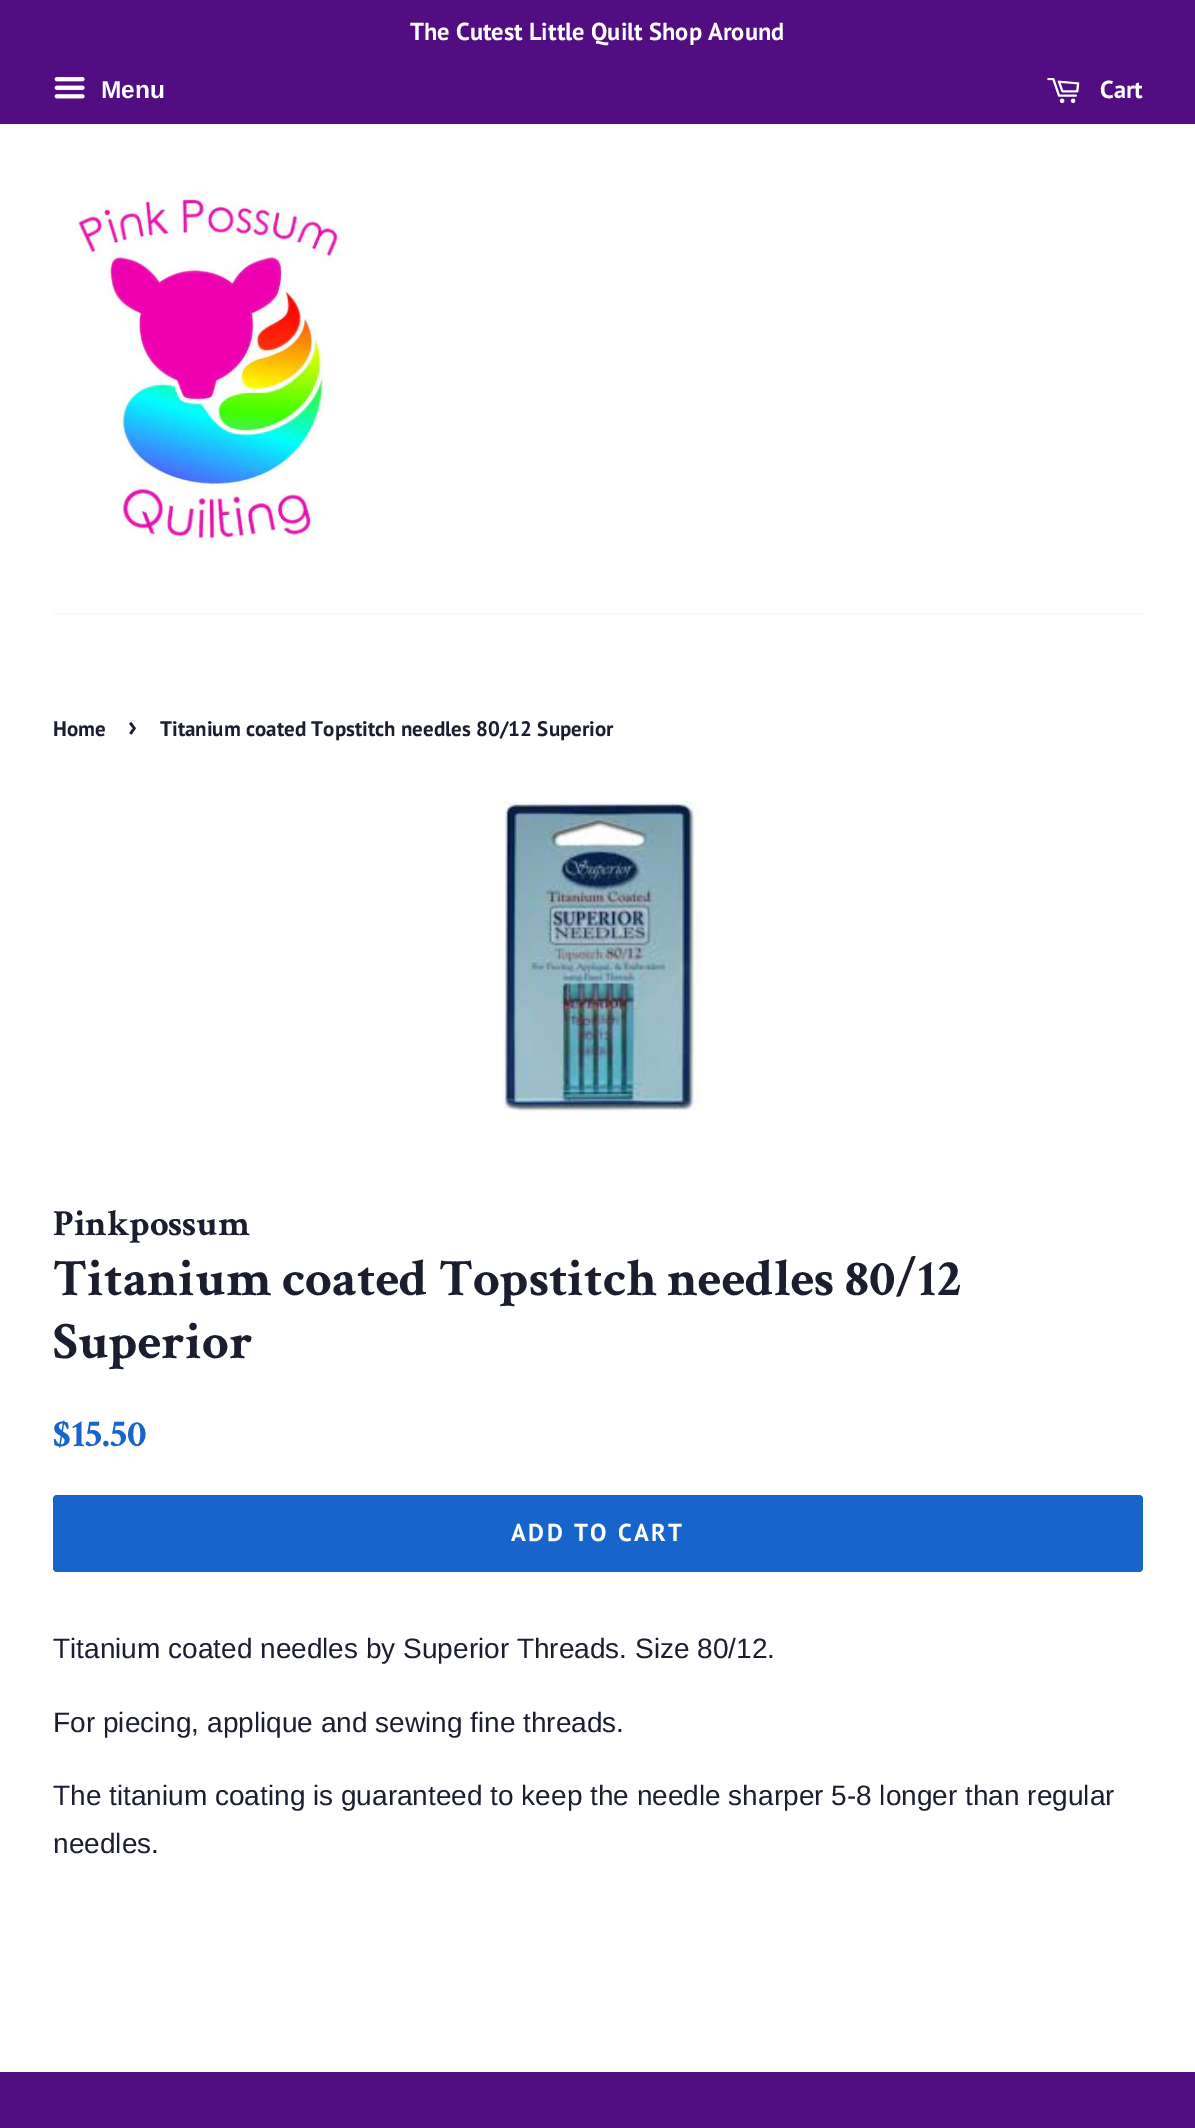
%!PS
<< /PageSize [1195 2128] >> setpagedevice
/rgb { 3 { 255 div 3 1 roll } repeat setrgbcolor } def
/font { [ exch dup neg 0 0 3 -1 roll 0 0 ] selectfont } def
/text { moveto show } def
/roundrect { 5 dict begin { /r /h /w /y /x } { exch def } forall
  x r add y moveto x w add y 2 copy h add r arct x w add y h add x 1 index r arct
  x y h add x y r arct x y 2 copy exch w add exch r arct closepath end } def
/picture { 5 dict begin { /h /w /y /x /name } { exch def } forall
  gsave x y translate w h scale
  w h 8 [w 0 0 h 0 0] name (r) file false 3 colorimage grestore end } def
0 2128 translate 1 -1 scale
4 setmiterlimit
255 255 255 rgb
0 0 1195 2128 rectfill
82 13 130 rgb
0 0 1195 124 rectfill
(img_01.rgb) 54 77 31 22 picture
(img_02.rgb) 1047 78 33 26 picture
250 249 247 rgb
53 613 1090 2 rectfill
(img_03.rgb) 73 194 267 349 picture
(img_04.rgb) 503 801 198 311 picture
23 101 203 rgb
53 1495 1090 77 4 roundrect fill
82 13 130 rgb
0 2072 1195 56 rectfill
/PTSans-Bold 24.5 font
255 255 255 rgb
(The Cutest Little Quilt Shop Around) 410 40 text
/LiberationSans-Bold 24.5 font
(Menu) 101 98 text
/PTSans-Bold 24.5 font
(Cart) 1100 98 text
/PTSans-Bold 21 font
27 30 47 rgb
(Home) 53 736 text
/PTSans-Bold 29 font
(›) 128 736 text
/PTSans-Bold 21 font
(Titanium coated Topstitch needles 80/12 Superior) 160 736 text
/CrimsonText-Bold 36.75 font
(Pinkpossum) 53 1235 text
/CrimsonText-Bold 52.5 font
(Titanium coated Topstitch needles 80/12) 53 1295 text
(Superior) 53 1358 text
/CrimsonText-Bold 39 font
23 101 203 rgb
($15.50) 53 1446 text
/PTSans-Bold 24.5 font
255 255 255 rgb
511 1541 moveto 2.5 0 (ADD TO CART) ashow
/LiberationSans-Regular 28 font
27 30 47 rgb
(Titanium coated needles by Superior Threads. Size 80/12.) 53 1658 text
(For piecing, applique and sewing fine threads.) 53 1732 text
(The titanium coating is guaranteed to keep the needle sharper 5-8 longer than regular) 53 1805 text
(needles.) 53 1853 text
showpage
